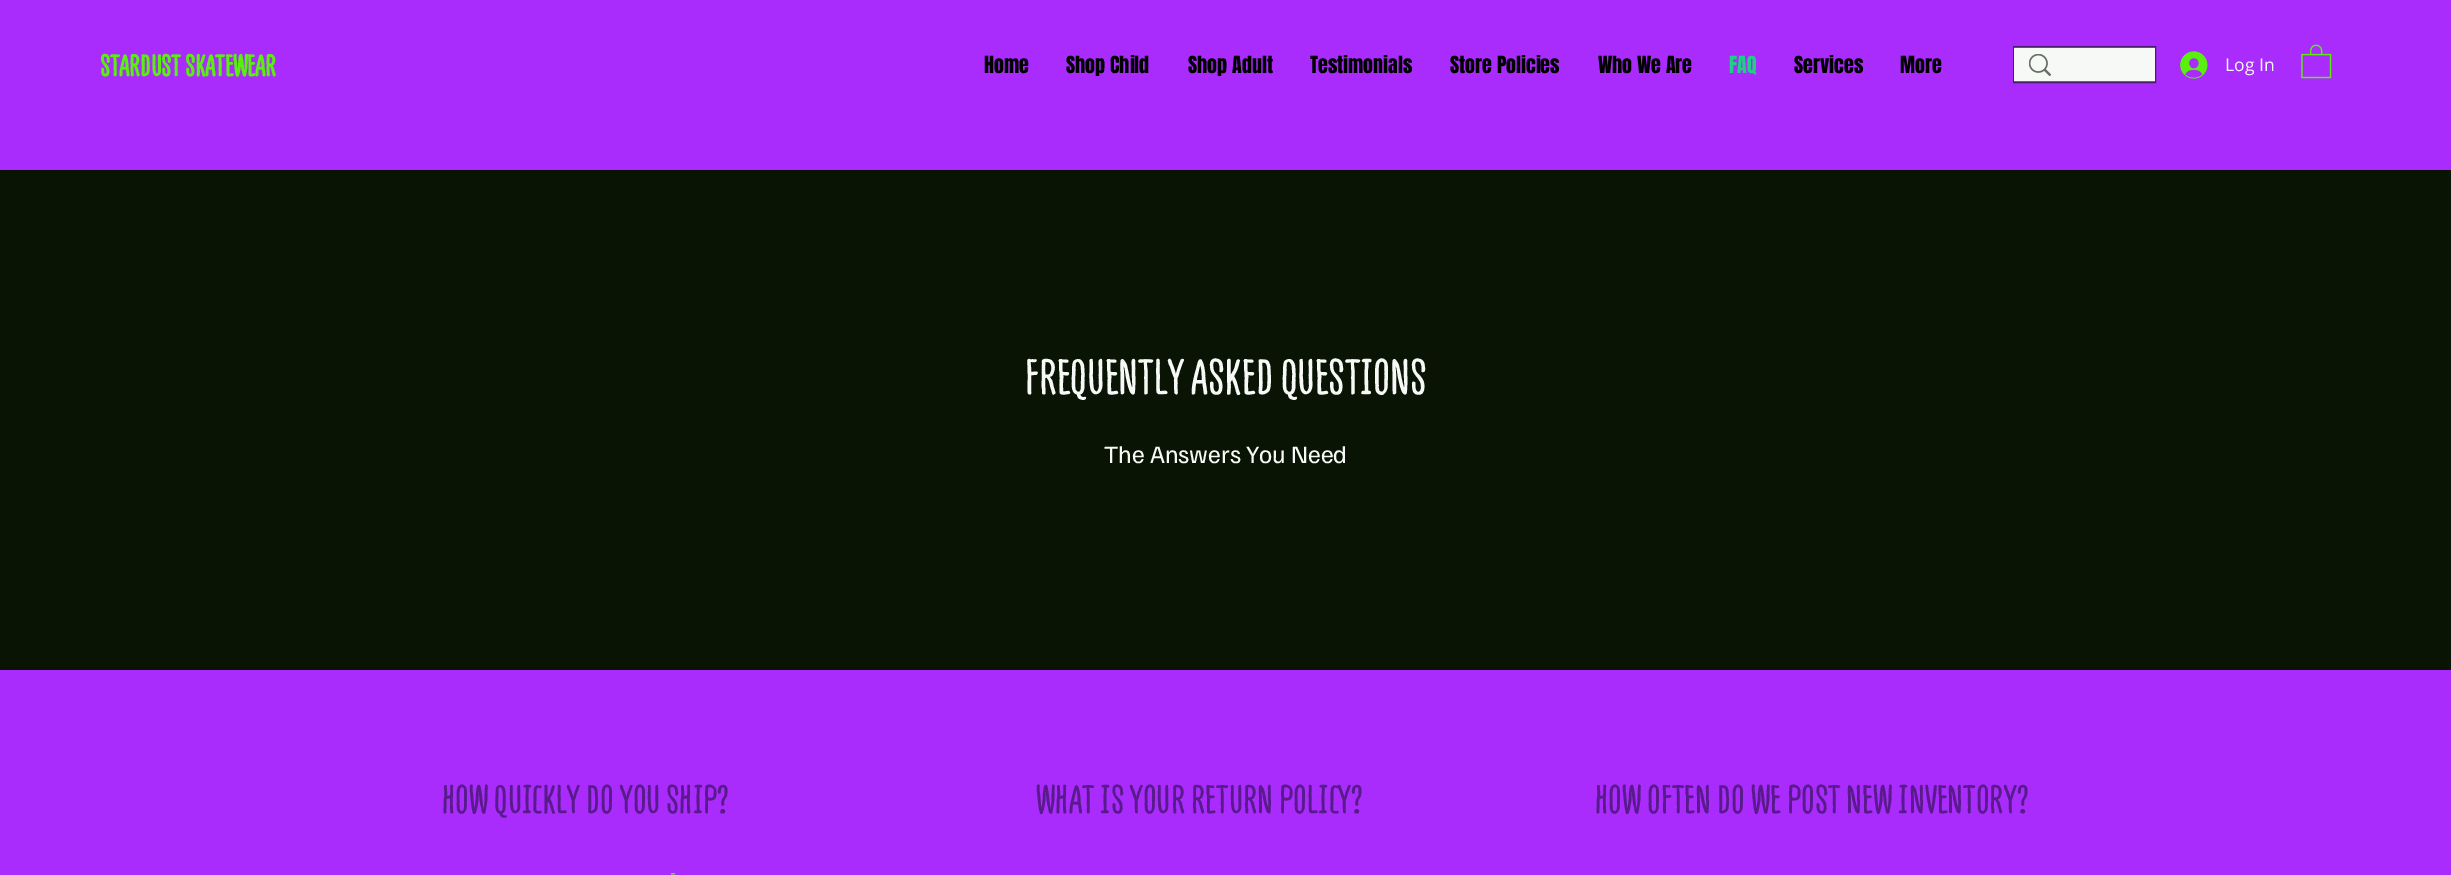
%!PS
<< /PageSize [2451 875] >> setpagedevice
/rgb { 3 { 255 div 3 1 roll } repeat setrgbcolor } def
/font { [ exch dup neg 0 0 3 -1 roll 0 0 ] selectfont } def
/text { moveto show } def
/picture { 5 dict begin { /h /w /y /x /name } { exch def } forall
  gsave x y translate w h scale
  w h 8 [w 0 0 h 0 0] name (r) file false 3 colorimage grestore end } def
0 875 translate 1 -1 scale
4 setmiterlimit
169 44 253 rgb
0 0 2451 875 rectfill
73 30 104 rgb
2013.5 46.5 142 36 rectstroke
246 249 245 rgb
2014 48 141 33 rectfill
(img_01.rgb) 2029 54 22 22 picture
(img_02.rgb) 2180 51 28 28 picture
(img_03.rgb) 2301 44 31 35 picture
9 20 5 rgb
0 170 2451 500 rectfill
/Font-Bold 30 font
89 239 15 rgb
(STARDUST SKATEWEAR) 100 76 text
/Anton-Regular 20 font
0 0 0 rgb
(Home) 984 73 text
(Shop Child) 1066 73 text
(Shop Adult) 1188 73 text
(Testimonials) 1310 73 text
(Store Policies) 1450 73 text
(Who We Are) 1598 73 text
32 206 136 rgb
(FAQ) 1729 73 text
0 0 0 rgb
(Services) 1794 73 text
(More) 1900 73 text
/OpenSans-Regular 17.5 font
246 249 245 rgb
(Log In) 2225 71 text
/Font-Regular 50 font
(FREQUENTLY ASKED QUESTIONS) 1025 394 text
/FamiljenGrotesk-Regular 25 font
(The Answers You Need) 1104 463 text
/Font-Regular 40 font
89 27 139 rgb
(HOW QUICKLY DO YOU SHIP?) 442 813 text
/FamiljenGrotesk-Regular 20 font
89 239 15 rgb
(-) 670 879 text
/Font-Regular 40 font
89 27 139 rgb
(WHAT IS YOUR RETURN POLICY?) 1036 813 text
(HOW OFTEN DO WE POST NEW INVENTORY?) 1595 813 text
showpage
